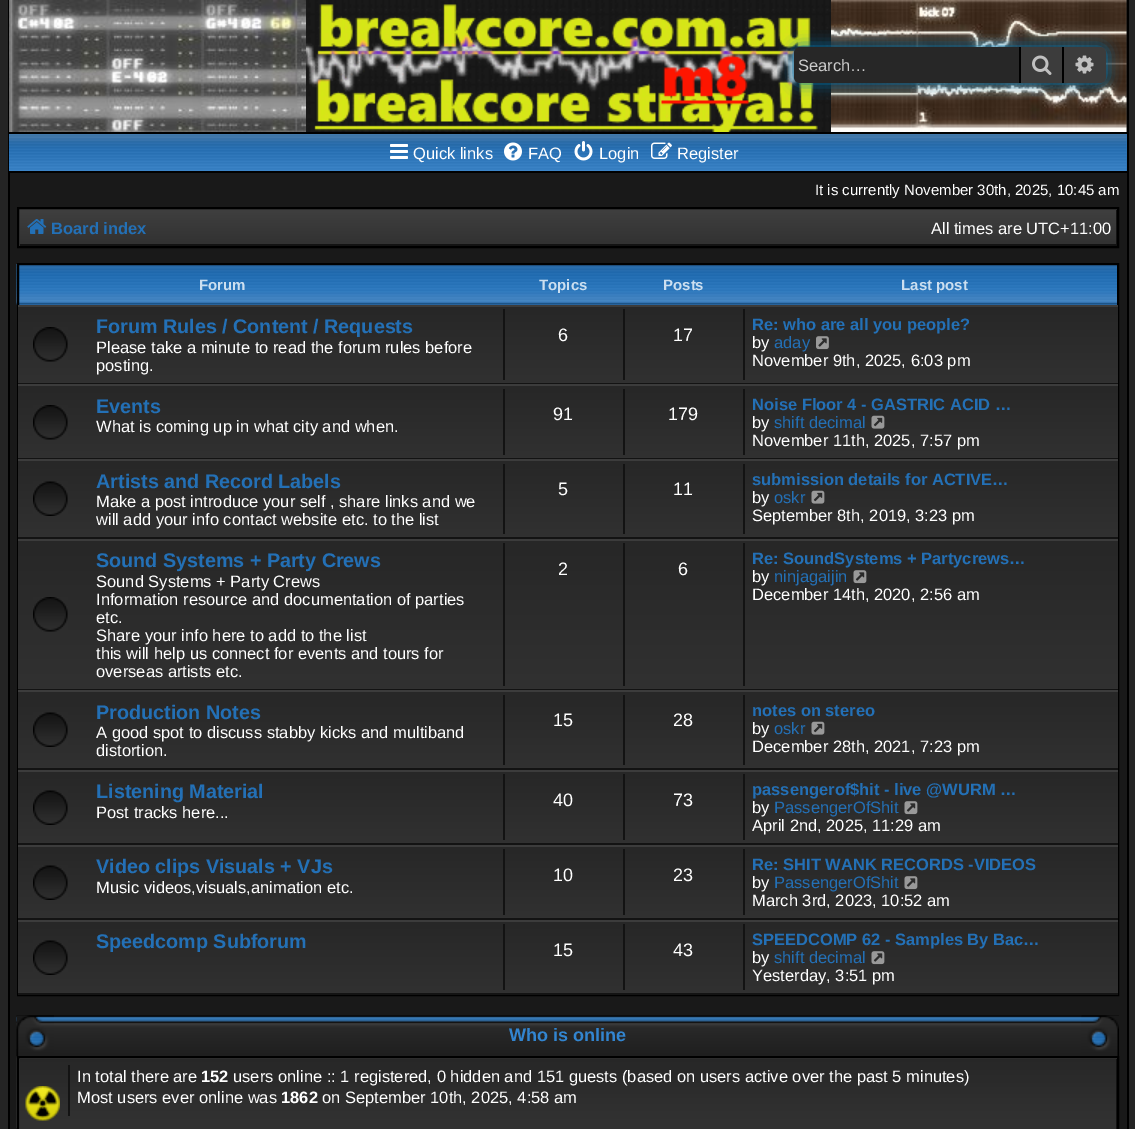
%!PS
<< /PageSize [1135 1129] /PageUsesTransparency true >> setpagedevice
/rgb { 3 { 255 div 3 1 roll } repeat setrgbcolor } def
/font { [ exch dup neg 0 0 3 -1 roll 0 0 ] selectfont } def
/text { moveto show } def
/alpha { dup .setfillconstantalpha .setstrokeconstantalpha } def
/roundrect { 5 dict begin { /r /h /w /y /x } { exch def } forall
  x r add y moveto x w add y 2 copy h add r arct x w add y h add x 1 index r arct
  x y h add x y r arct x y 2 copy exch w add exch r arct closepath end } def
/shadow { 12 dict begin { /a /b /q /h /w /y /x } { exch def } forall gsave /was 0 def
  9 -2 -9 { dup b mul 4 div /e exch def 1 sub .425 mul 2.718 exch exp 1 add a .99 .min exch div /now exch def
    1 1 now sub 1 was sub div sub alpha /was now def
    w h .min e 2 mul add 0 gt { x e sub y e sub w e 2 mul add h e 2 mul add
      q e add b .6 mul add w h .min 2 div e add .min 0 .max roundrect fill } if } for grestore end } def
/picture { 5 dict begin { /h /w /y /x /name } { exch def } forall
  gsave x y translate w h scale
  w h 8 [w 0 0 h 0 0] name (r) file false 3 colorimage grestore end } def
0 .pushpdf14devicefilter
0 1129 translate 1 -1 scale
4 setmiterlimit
36 36 36 rgb
0 0 1135 1129 rectfill
25 25 25 rgb
10 0 1117 1129 rectfill
0 0 0 rgb
1127 0 2 1129 rectfill
8 0 2 1129 rectfill
(img_01.rgb) 9 0 1118 132 picture
(img_02.rgb) 306 0 525 132 picture
0 117 176 rgb
794 47 312 36 6 7.5 1 shadow
39 39 39 rgb
800 47 moveto 219 0 rlineto 0 36 rlineto -219 0 rlineto -3.5 0 -6 -2.5 -6 -6 rcurveto 0 -24 rlineto 0 -3.5 2.5 -6 6 -6 rcurveto closepath fill
60 60 60 rgb
1021 47 41 36 rectfill
0 0 0 rgb
1062 47 2 36 rectfill
1019 47 2 36 rectfill
(img_03.rgb) 1032 55 20 20 picture
60 60 60 rgb
1064 47 moveto 36 0 rlineto 3.5 0 6 2.5 6 6 rcurveto 0 24 rlineto 0 3.5 -2.5 6 -6 6 rcurveto -36 0 rlineto closepath fill
(img_04.rgb) 1075 55 19 19 picture
47 116 179 rgb
1126 134 1 37 rectfill
(img_05.rgb) 9 134 1118 37 picture
0 0 0 rgb
9 132 1118 2 rectfill
9 171 1118 2 rectfill
(img_06.rgb) 390 144 18 15 picture
(img_07.rgb) 504 142 18 19 picture
(img_08.rgb) 574 141 19 20 picture
(img_09.rgb) 651 142 21 17 picture
gsave 20 210 moveto 1096 0 rlineto 0 34 rlineto -1096 0 rlineto closepath clip newpath
<< /ShadingType 2 /ColorSpace /DeviceRGB /Coords [568 208 568 246] /Extend [true true] /Function << /FunctionType 2 /Domain [0 1] /C0 [0.251 0.251 0.251] /C1 [0.192 0.192 0.192] /N 1 >> >> shfill grestore
gsave
18 209 1100 37 rectclip
19 19 19 rgb
-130 60 moveto 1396 0 rlineto 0 334 rlineto -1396 0 rlineto closepath 16 207 moveto 1100 0 rlineto 0 37 rlineto -1100 0 rlineto closepath eofill
60 60 60 rgb
-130 60 moveto 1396 0 rlineto 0 334 rlineto -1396 0 rlineto closepath 20 210 moveto 1099 0 rlineto 0 38 rlineto -1099 0 rlineto closepath eofill
grestore
2 setlinewidth
18 208 1100 39 rectstroke
(img_10.rgb) 27 219 20 15 picture
58 123 186 rgb
19 304 1098 1 rectfill
(img_11.rgb) 16 264 1101 41 picture
0 0 0 rgb
18 264 1100 731 rectstroke
gsave 18 307 moveto 1100 0 rlineto 0 76 rlineto -1100 0 rlineto closepath clip newpath
<< /ShadingType 2 /ColorSpace /DeviceRGB /Coords [568 306 568 383] /Extend [true true] /Function << /FunctionType 2 /Domain [0 1] /C0 [0.153 0.153 0.153] /C1 [0.192 0.192 0.192] /N 1 >> >> shfill grestore
60 60 60 rgb
18 305 1100 2 rectfill
19 19 19 rgb
18 383 1100 1 rectfill
(img_12.rgb) 33 327 35 35 picture
503 309 2 71 rectfill
623 309 2 71 rectfill
743 309 2 71 rectfill
(img_13.rgb) 816 336 13 14 picture
gsave 18 386 moveto 1100 0 rlineto 0 72 rlineto -1100 0 rlineto closepath clip newpath
<< /ShadingType 2 /ColorSpace /DeviceRGB /Coords [568 385 568 458] /Extend [true true] /Function << /FunctionType 2 /Domain [0 1] /C0 [0.153 0.153 0.153] /C1 [0.192 0.192 0.192] /N 1 >> >> shfill grestore
60 60 60 rgb
18 384 1100 2 rectfill
19 19 19 rgb
18 458 1100 1 rectfill
(img_14.rgb) 33 405 35 35 picture
503 389 2 66 rectfill
623 389 2 66 rectfill
743 389 2 66 rectfill
(img_15.rgb) 871 415 14 14 picture
gsave 18 461 moveto 1100 0 rlineto 0 76 rlineto -1100 0 rlineto closepath clip newpath
<< /ShadingType 2 /ColorSpace /DeviceRGB /Coords [568 460 568 537] /Extend [true true] /Function << /FunctionType 2 /Domain [0 1] /C0 [0.153 0.153 0.153] /C1 [0.192 0.192 0.192] /N 1 >> >> shfill grestore
60 60 60 rgb
18 459 1100 2 rectfill
19 19 19 rgb
18 537 1100 2 rectfill
(img_16.rgb) 33 481 35 35 picture
503 464 2 70 rectfill
623 464 2 70 rectfill
743 464 2 70 rectfill
(img_17.rgb) 811 490 14 14 picture
gsave 18 541 moveto 1100 0 rlineto 0 148 rlineto -1100 0 rlineto closepath clip newpath
<< /ShadingType 2 /ColorSpace /DeviceRGB /Coords [568 540 568 689] /Extend [true true] /Function << /FunctionType 2 /Domain [0 1] /C0 [0.153 0.153 0.153] /C1 [0.192 0.192 0.192] /N 1 >> >> shfill grestore
60 60 60 rgb
18 539 1100 2 rectfill
19 19 19 rgb
18 689 1100 1 rectfill
(img_18.rgb) 33 597 35 35 picture
503 543 2 143 rectfill
623 543 2 143 rectfill
743 543 2 143 rectfill
(img_19.rgb) 853 570 14 14 picture
gsave 18 692 moveto 1100 0 rlineto 0 76 rlineto -1100 0 rlineto closepath clip newpath
<< /ShadingType 2 /ColorSpace /DeviceRGB /Coords [568 691 568 768] /Extend [true true] /Function << /FunctionType 2 /Domain [0 1] /C0 [0.153 0.153 0.153] /C1 [0.192 0.192 0.192] /N 1 >> >> shfill grestore
60 60 60 rgb
18 690 1100 2 rectfill
19 19 19 rgb
18 768 1100 2 rectfill
(img_16.rgb) 33 712 35 35 picture
503 695 2 70 rectfill
623 695 2 70 rectfill
743 695 2 70 rectfill
(img_17.rgb) 811 721 14 14 picture
gsave 18 772 moveto 1100 0 rlineto 0 71 rlineto -1100 0 rlineto closepath clip newpath
<< /ShadingType 2 /ColorSpace /DeviceRGB /Coords [568 771 568 843] /Extend [true true] /Function << /FunctionType 2 /Domain [0 1] /C0 [0.153 0.153 0.153] /C1 [0.192 0.192 0.192] /N 1 >> >> shfill grestore
60 60 60 rgb
18 770 1100 2 rectfill
19 19 19 rgb
18 843 1100 2 rectfill
(img_20.rgb) 33 790 35 35 picture
503 774 2 66 rectfill
623 774 2 66 rectfill
743 774 2 66 rectfill
(img_21.rgb) 904 801 14 14 picture
gsave 18 847 moveto 1100 0 rlineto 0 71 rlineto -1100 0 rlineto closepath clip newpath
<< /ShadingType 2 /ColorSpace /DeviceRGB /Coords [568 846 568 918] /Extend [true true] /Function << /FunctionType 2 /Domain [0 1] /C0 [0.153 0.153 0.153] /C1 [0.192 0.192 0.192] /N 1 >> >> shfill grestore
60 60 60 rgb
18 845 1100 2 rectfill
19 19 19 rgb
18 918 1100 2 rectfill
(img_20.rgb) 33 865 35 35 picture
503 849 2 66 rectfill
623 849 2 66 rectfill
743 849 2 66 rectfill
(img_21.rgb) 904 876 14 14 picture
gsave 18 922 moveto 1100 0 rlineto 0 71 rlineto -1100 0 rlineto closepath clip newpath
<< /ShadingType 2 /ColorSpace /DeviceRGB /Coords [568 921 568 993] /Extend [true true] /Function << /FunctionType 2 /Domain [0 1] /C0 [0.153 0.153 0.153] /C1 [0.192 0.192 0.192] /N 1 >> >> shfill grestore
60 60 60 rgb
18 920 1100 2 rectfill
19 19 19 rgb
18 993 1100 2 rectfill
(img_20.rgb) 33 940 35 35 picture
503 924 2 66 rectfill
623 924 2 66 rectfill
743 924 2 66 rectfill
(img_21.rgb) 871 951 14 14 picture
(img_22.rgb) 16 1015 1103 41 picture
49 49 49 rgb
20 1128 1096 1 rectfill
(img_23.rgb) 16 1057 1100 71 picture
gsave
18 1058 1100 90 rectclip
19 19 19 rgb
-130 909 moveto 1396 0 rlineto 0 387 rlineto -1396 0 rlineto closepath 16 1056 moveto 1100 0 rlineto 0 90 rlineto -1100 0 rlineto closepath eofill
60 60 60 rgb
-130 909 moveto 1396 0 rlineto 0 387 rlineto -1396 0 rlineto closepath 20 1059 moveto 1099 0 rlineto 0 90 rlineto -1099 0 rlineto closepath eofill
grestore
0 0 0 rgb
18 1057 1100 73 rectstroke
19 19 19 rgb
68 1065 2 51 rectfill
/LiberationSans-Regular 16.5 font
204 204 204 rgb
(Search…) 798 71 text
255 255 255 rgb
(Quick links) 413 159 text
(FAQ) 528 159 text
(Login) 599 159 text
(Register) 677 159 text
/LiberationSans-Regular 15 font
(It is currently November 30th, 2025, 10:45 am) 815 195 text
/LiberationSans-Bold 16.5 font
35 112 182 rgb
(Board index) 51 234 text
/LiberationSans-Regular 16.5 font
255 255 255 rgb
(All times are UTC+11:00) 931 234 text
/LiberationSans-Bold 15 font
204 223 240 rgb
(Forum) 199 290 text
(Topics) 539 290 text
(Posts) 663 290 text
(Last post) 901 290 text
/LiberationSans-Bold 19.75 font
35 112 182 rgb
(Forum Rules / Content / Requests) 96 333 text
/LiberationSans-Regular 16.5 font
255 255 255 rgb
(Please take a minute to read the forum rules before) 96 353 text
(posting.) 96 371 text
/LiberationSans-Regular 18 font
(6) 558 341 text
(17) 673 341 text
/LiberationSans-Bold 16.5 font
35 112 182 rgb
(Re: who are all you people?) 752 330 text
/LiberationSans-Regular 16.5 font
255 255 255 rgb
(by) 752 348 text
35 112 182 rgb
(aday) 774 348 text
255 255 255 rgb
(November 9th, 2025, 6:03 pm) 752 366 text
/LiberationSans-Bold 19.75 font
35 112 182 rgb
(Events) 96 413 text
/LiberationSans-Regular 16.5 font
255 255 255 rgb
(What is coming up in what city and when.) 96 432 text
/LiberationSans-Regular 18 font
(91) 553 420 text
(179) 668 420 text
/LiberationSans-Bold 16.5 font
35 112 182 rgb
(Noise Floor 4 - GASTRIC ACID …) 752 410 text
/LiberationSans-Regular 16.5 font
255 255 255 rgb
(by) 752 428 text
35 112 182 rgb
(shift decimal) 774 428 text
255 255 255 rgb
(November 11th, 2025, 7:57 pm) 752 446 text
/LiberationSans-Bold 19.75 font
35 112 182 rgb
(Artists and Record Labels) 96 488 text
/LiberationSans-Regular 16.5 font
255 255 255 rgb
(Make a post introduce your self , share links and we) 96 507 text
(will add your info contact website etc. to the list) 96 525 text
/LiberationSans-Regular 18 font
(5) 558 495 text
(11) 673 495 text
/LiberationSans-Bold 16.5 font
35 112 182 rgb
(submission details for ACTIVE…) 752 485 text
/LiberationSans-Regular 16.5 font
255 255 255 rgb
(by) 752 503 text
35 112 182 rgb
(oskr) 774 503 text
255 255 255 rgb
(September 8th, 2019, 3:23 pm) 752 521 text
/LiberationSans-Bold 19.75 font
35 112 182 rgb
(Sound Systems + Party Crews) 96 567 text
/LiberationSans-Regular 16.5 font
255 255 255 rgb
(Sound Systems + Party Crews) 96 587 text
(Information resource and documentation of parties) 96 605 text
(etc.) 96 623 text
(Share your info here to add to the list) 96 641 text
(this will help us connect for events and tours for) 96 659 text
(overseas artists etc.) 96 677 text
/LiberationSans-Regular 18 font
(2) 558 575 text
(6) 678 575 text
/LiberationSans-Bold 16.5 font
35 112 182 rgb
(Re: SoundSystems + Partycrews…) 752 564 text
/LiberationSans-Regular 16.5 font
255 255 255 rgb
(by) 752 582 text
35 112 182 rgb
(ninjagaijin) 774 582 text
255 255 255 rgb
(December 14th, 2020, 2:56 am) 752 600 text
/LiberationSans-Bold 19.75 font
35 112 182 rgb
(Production Notes) 96 719 text
/LiberationSans-Regular 16.5 font
255 255 255 rgb
(A good spot to discuss stabby kicks and multiband) 96 738 text
(distortion.) 96 756 text
/LiberationSans-Regular 18 font
(15) 553 726 text
(28) 673 726 text
/LiberationSans-Bold 16.5 font
35 112 182 rgb
(notes on stereo) 752 716 text
/LiberationSans-Regular 16.5 font
255 255 255 rgb
(by) 752 734 text
35 112 182 rgb
(oskr) 774 734 text
255 255 255 rgb
(December 28th, 2021, 7:23 pm) 752 752 text
/LiberationSans-Bold 19.75 font
35 112 182 rgb
(Listening Material) 96 798 text
/LiberationSans-Regular 16.5 font
255 255 255 rgb
(Post tracks here...) 96 818 text
/LiberationSans-Regular 18 font
(40) 553 806 text
(73) 673 806 text
/LiberationSans-Bold 16.5 font
35 112 182 rgb
(passengerof$hit - live @WURM …) 752 795 text
/LiberationSans-Regular 16.5 font
255 255 255 rgb
(by) 752 813 text
35 112 182 rgb
(PassengerOfShit) 774 813 text
255 255 255 rgb
(April 2nd, 2025, 11:29 am) 752 831 text
/LiberationSans-Bold 19.75 font
35 112 182 rgb
(Video clips Visuals + VJs) 96 873 text
/LiberationSans-Regular 16.5 font
255 255 255 rgb
(Music videos,visuals,animation etc.) 96 893 text
/LiberationSans-Regular 18 font
(10) 553 881 text
(23) 673 881 text
/LiberationSans-Bold 16.5 font
35 112 182 rgb
(Re: SHIT WANK RECORDS -VIDEOS) 752 870 text
/LiberationSans-Regular 16.5 font
255 255 255 rgb
(by) 752 888 text
35 112 182 rgb
(PassengerOfShit) 774 888 text
255 255 255 rgb
(March 3rd, 2023, 10:52 am) 752 906 text
/LiberationSans-Bold 19.75 font
35 112 182 rgb
(Speedcomp Subforum) 96 948 text
/LiberationSans-Regular 18 font
255 255 255 rgb
(15) 553 956 text
(43) 673 956 text
/LiberationSans-Bold 16.5 font
35 112 182 rgb
(SPEEDCOMP 62 - Samples By Bac…) 752 945 text
/LiberationSans-Regular 16.5 font
255 255 255 rgb
(by) 752 963 text
35 112 182 rgb
(shift decimal) 774 963 text
255 255 255 rgb
(Yesterday, 3:51 pm) 752 981 text
/LiberationSans-Bold 18 font
50 133 208 rgb
(Who is online) 509 1041 text
/LiberationSans-Regular 16.5 font
255 255 255 rgb
(In total there are) 77 1082 text
/LiberationSans-Bold 16.5 font
(152) 201 1082 text
/LiberationSans-Regular 16.5 font
(users online :: 1 registered, 0 hidden and 151 guests \(based on users active over the past 5 minutes\)) 233 1082 text
(Most users ever online was) 77 1103 text
/LiberationSans-Bold 16.5 font
(1862) 281 1103 text
/LiberationSans-Regular 16.5 font
(on September 10th, 2025, 4:58 am) 322 1103 text
.poppdf14devicefilter showpage
